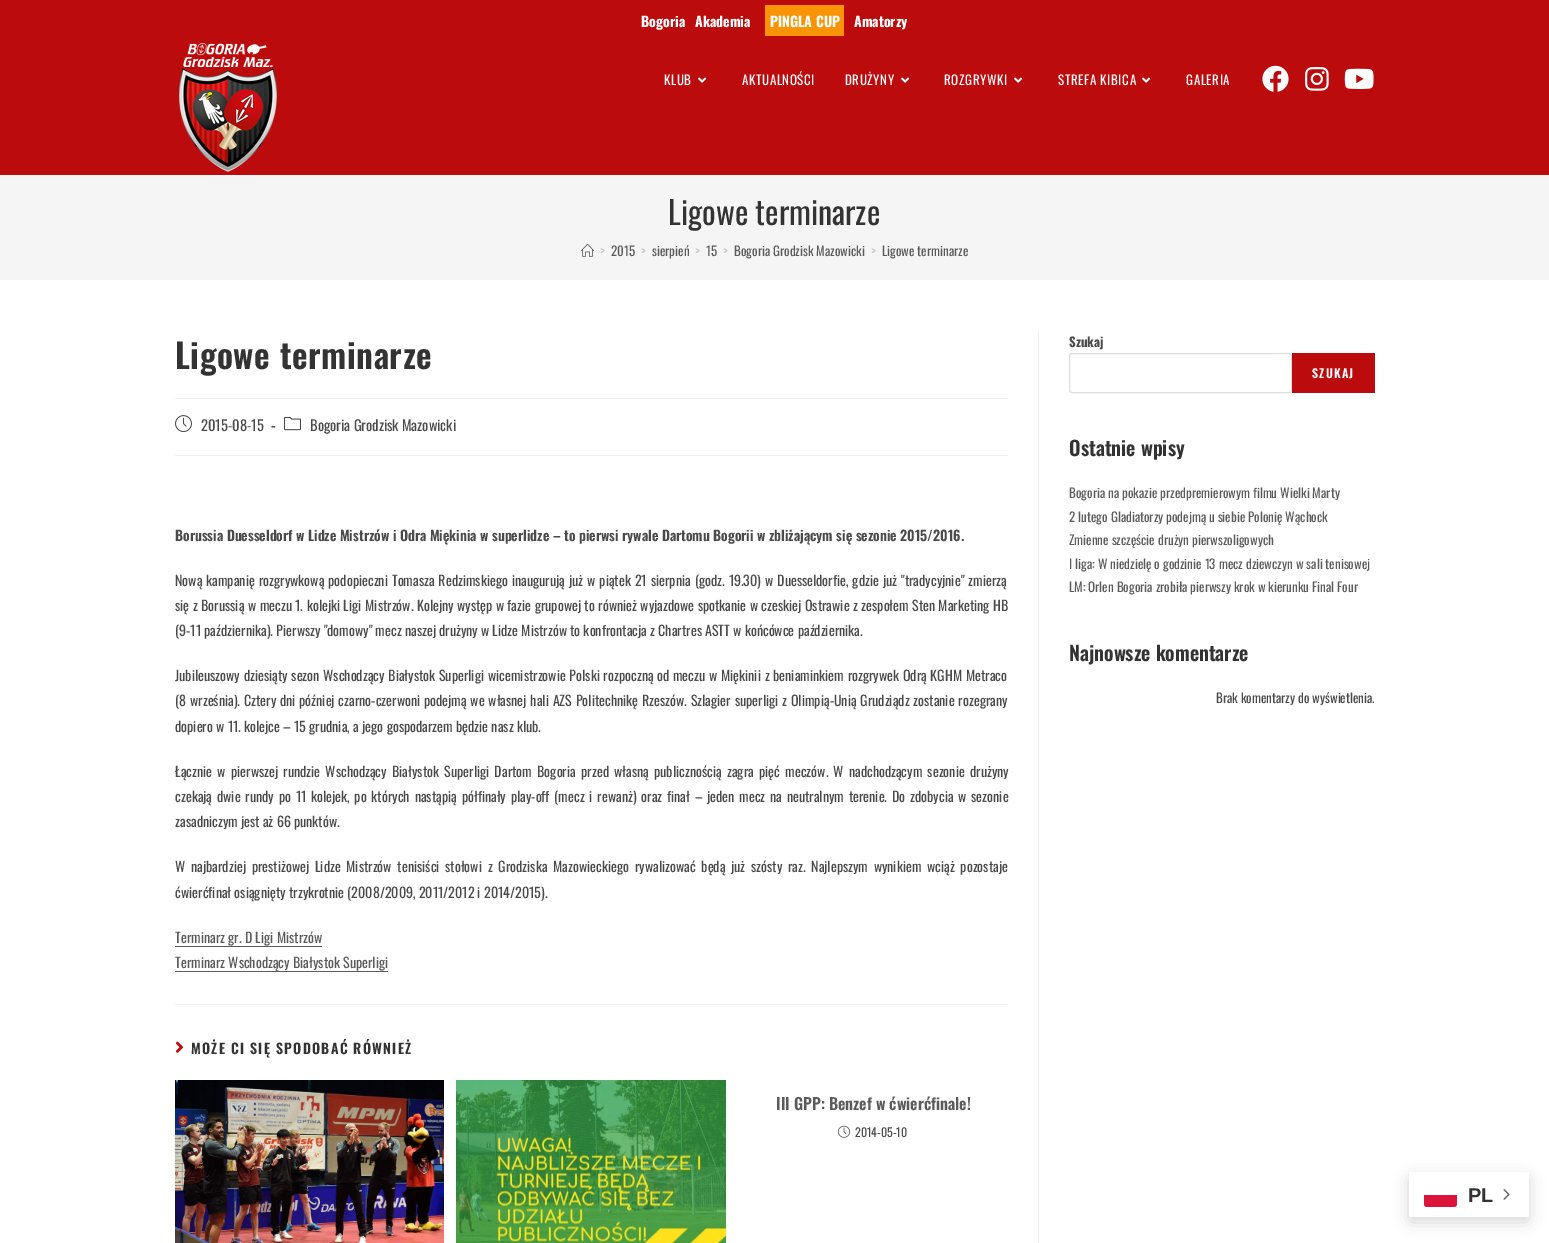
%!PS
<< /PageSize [1549 1243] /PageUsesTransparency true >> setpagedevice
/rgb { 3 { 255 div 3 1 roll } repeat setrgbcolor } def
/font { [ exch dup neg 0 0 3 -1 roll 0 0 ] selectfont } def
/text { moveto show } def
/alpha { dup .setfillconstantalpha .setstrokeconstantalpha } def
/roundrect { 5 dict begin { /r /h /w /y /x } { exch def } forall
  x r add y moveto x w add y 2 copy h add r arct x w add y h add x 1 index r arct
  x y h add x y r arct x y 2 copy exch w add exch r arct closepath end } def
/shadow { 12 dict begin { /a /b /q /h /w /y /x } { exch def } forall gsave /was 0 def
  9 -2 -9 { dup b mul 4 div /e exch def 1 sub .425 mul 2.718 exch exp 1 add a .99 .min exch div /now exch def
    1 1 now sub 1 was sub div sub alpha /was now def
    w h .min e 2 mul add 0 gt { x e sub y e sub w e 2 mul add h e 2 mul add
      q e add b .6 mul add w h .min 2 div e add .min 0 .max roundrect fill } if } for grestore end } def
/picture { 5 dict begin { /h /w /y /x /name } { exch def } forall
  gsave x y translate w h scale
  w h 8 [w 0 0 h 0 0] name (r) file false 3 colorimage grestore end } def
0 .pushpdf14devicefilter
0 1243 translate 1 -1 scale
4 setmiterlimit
255 255 255 rgb
0 0 1549 1243 rectfill
188 11 12 rgb
0 0 1549 175 rectfill
248 148 6 rgb
765 5 79 31 rectfill
(img_01.rgb) 179 43 98 129 picture
(img_02.rgb) 698 77 9 6 picture
(img_02.rgb) 901 77 9 6 picture
(img_02.rgb) 1014 77 9 6 picture
(img_02.rgb) 1142 77 9 6 picture
(img_03.rgb) 1262 65 27 27 picture
(img_04.rgb) 1305 67 24 24 picture
(img_05.rgb) 1344 68 30 21 picture
245 245 245 rgb
0 175 1549 105 rectfill
(img_06.rgb) 581 243 13 14 picture
241 241 241 rgb
1038 330 1 913 rectfill
175 398 833 1 rectfill
175 455 833 1 rectfill
(img_07.rgb) 175 415 17 18 picture
(img_08.rgb) 284 416 17 15 picture
91 91 91 rgb
175 946 147 1 rectfill
175 971 213 1 rectfill
241 241 241 rgb
175 1004 833 1 rectfill
(img_09.rgb) 175 1041 9 12 picture
(img_10.rgb) 175 1080 269 163 picture
(img_11.rgb) 456 1080 270 163 picture
(img_12.rgb) 838 1125 12 13 picture
221 221 221 rgb
1069.5 353.5 222 39 2.5 roundrect stroke
188 11 12 rgb
1292 353 83 40 rectfill
0 0 0 rgb
1409 1177 120 45 2 7.5 0.15 shadow
255 255 255 rgb
1409 1172 120 45 2 roundrect fill
220 20 60 rgb
1424 1195 moveto 33 0 rlineto 0 9 rlineto 0 1.5 -1.5 3 -3 3 rcurveto -27 0 rlineto -1.5 0 -3 -1.5 -3 -3 rcurveto closepath fill
(img_13.rgb) 1503 1189 7 11 picture
/Oswald-Bold 14 font
255 255 255 rgb
(Bogoria) 641 27 text
(Akademia) 695 27 text
(PINGLA CUP) 770 27 text
(Amatorzy) 854 27 text
/Oswald-Regular 13 font
664 85 moveto 0.6 0 (KLUB) ashow
742 85 moveto 0.6 0 (AKTUALNOŚCI) ashow
845 85 moveto 0.6 0 (DRUŻYNY) ashow
944 85 moveto 0.6 0 (ROZGRYWKI) ashow
1058 85 moveto 0.6 0 (STREFA KIBICA) ashow
1186 85 moveto 0.6 0 (GALERIA) ashow
/Oswald-Regular 32 font
51 51 51 rgb
(Ligowe terminarze) 668 225 text
/Oswald-Regular 13 font
198 198 198 rgb
(>) 600 256 text
91 91 91 rgb
(2015) 611 256 text
198 198 198 rgb
(>) 641 256 text
91 91 91 rgb
(sierpień) 652 256 text
198 198 198 rgb
(>) 695 256 text
91 91 91 rgb
(15) 706 256 text
198 198 198 rgb
(>) 723 256 text
91 91 91 rgb
(Bogoria Grodzisk Mazowicki) 734 256 text
198 198 198 rgb
(>) 871 256 text
91 91 91 rgb
(Ligowe terminarze) 882 256 text
/Oswald-SemiBold 34 font
51 51 51 rgb
175 369 moveto 0.6 0 (Ligowe terminarze) ashow
/Oswald-Regular 14.5 font
74 74 74 rgb
(2015-08-15) 201 431 text
/Oswald-Bold 14.5 font
(-) 271 431 text
/Oswald-Regular 14.5 font
(Bogoria Grodzisk Mazowicki) 310 431 text
/Oswald-SemiBold 14 font
(Borussia Duesseldorf w Lidze Mistrzów i Odra Miękinia w superlidze – to pierwsi rywale Dartomu Bogorii w zbliżającym się sezonie 2015/2016.) 175 541 text
/Oswald-Regular 14 font
175 586 moveto 0.75 0 32 (Nową kampanię rozgrywkową podopieczni Tomasza Redzimskiego inaugurują już w piątek 21 sierpnia \(godz. 19.30\) w Duesseldorfie, gdzie już "tradycyjnie" zmierzą) widthshow
175 611 moveto 0.25 0 32 (się z Borussią w meczu 1. kolejki Ligi Mistrzów. Kolejny występ w fazie grupowej to również wyjazdowe spotkanie w czeskiej Ostrawie z zespołem Sten Marketing HB) widthshow
(\(9-11 października\). Pierwszy "domowy" mecz naszej drużyny w Lidze Mistrzów to konfrontacja z Chartres ASTT w końcówce października.) 175 636 text
175 681 moveto 0.5 0 32 (Jubileuszowy dziesiąty sezon Wschodzący Białystok Superligi wicemistrzowie Polski rozpoczną od meczu w Miękinii z beniaminkiem rozgrywek Odrą KGHM Metraco) widthshow
175 706 moveto 0.6 0 32 (\(8 września\). Cztery dni później czarno-czerwoni podejmą we własnej hali AZS Politechnikę Rzeszów. Szlagier superligi z Olimpią-Unią Grudziądz zostanie rozegrany) widthshow
(dopiero w 11. kolejce – 15 grudnia, a jego gospodarzem będzie nasz klub.) 175 732 text
175 777 moveto 2 0 32 (Łącznie w pierwszej rundzie Wschodzący Białystok Superligi Dartom Bogoria przed własną publicznością zagra pięć meczów. W nadchodzącym sezonie drużyny) widthshow
175 802 moveto 1.6 0 32 (czekają dwie rundy po 11 kolejek, po których nastąpią półfinały play-off \(mecz i rewanż\) oraz finał – jeden mecz na neutralnym terenie. Do zdobycia w sezonie) widthshow
(zasadniczym jest aż 66 punktów.) 175 827 text
175 872 moveto 2.5 0 32 (W najbardziej prestiżowej Lidze Mistrzów tenisiści stołowi z Grodziska Mazowieckiego rywalizować będą już szósty raz. Najlepszym wynikiem wciąż pozostaje) widthshow
(ćwierćfinał osiągnięty trzykrotnie \(2008/2009, 2011/2012 i 2014/2015\).) 175 898 text
91 91 91 rgb
(Terminarz gr. D Ligi Mistrzów) 175 943 text
(Terminarz Wschodzący Białystok Superligi) 175 968 text
/Oswald-SemiBold 14 font
51 51 51 rgb
191 1054 moveto 1.3 0 (MOŻE CI SIĘ SPODOBAĆ RÓWNIEŻ) ashow
/Oswald-SemiBold 16 font
91 91 91 rgb
(III GPP: Benzef w ćwierćfinale!) 776 1110 text
/Oswald-Regular 12 font
74 74 74 rgb
(2014-05-10) 855 1137 text
/Oswald-Bold 13 font
(Szukaj) 1069 347 text
/Oswald-SemiBold 12 font
255 255 255 rgb
1312 378 moveto 1.25 0 (SZUKAJ) ashow
/Oswald-SemiBold 20 font
51 51 51 rgb
(Ostatnie wpisy) 1069 456 text
/Oswald-Regular 13 font
91 91 91 rgb
(Bogoria na pokazie przedpremierowym filmu Wielki Marty) 1069 498 text
(2 lutego Gladiatorzy podejmą u siebie Polonię Wąchock) 1069 522 text
(Zmienne szczęście drużyn pierwszoligowych) 1069 545 text
(I liga: W niedzielę o godzinie 13 mecz dziewczyn w sali tenisowej) 1069 569 text
(LM: Orlen Bogoria zrobiła pierwszy krok w kierunku Final Four) 1069 592 text
/Oswald-SemiBold 20 font
51 51 51 rgb
(Najnowsze komentarze) 1069 661 text
/Oswald-Regular 13 font
74 74 74 rgb
(Brak komentarzy do wyświetlenia.) 1216 703 text
/LiberationSans-Bold 20 font
51 51 51 rgb
(PL) 1468 1202 text
.poppdf14devicefilter showpage
